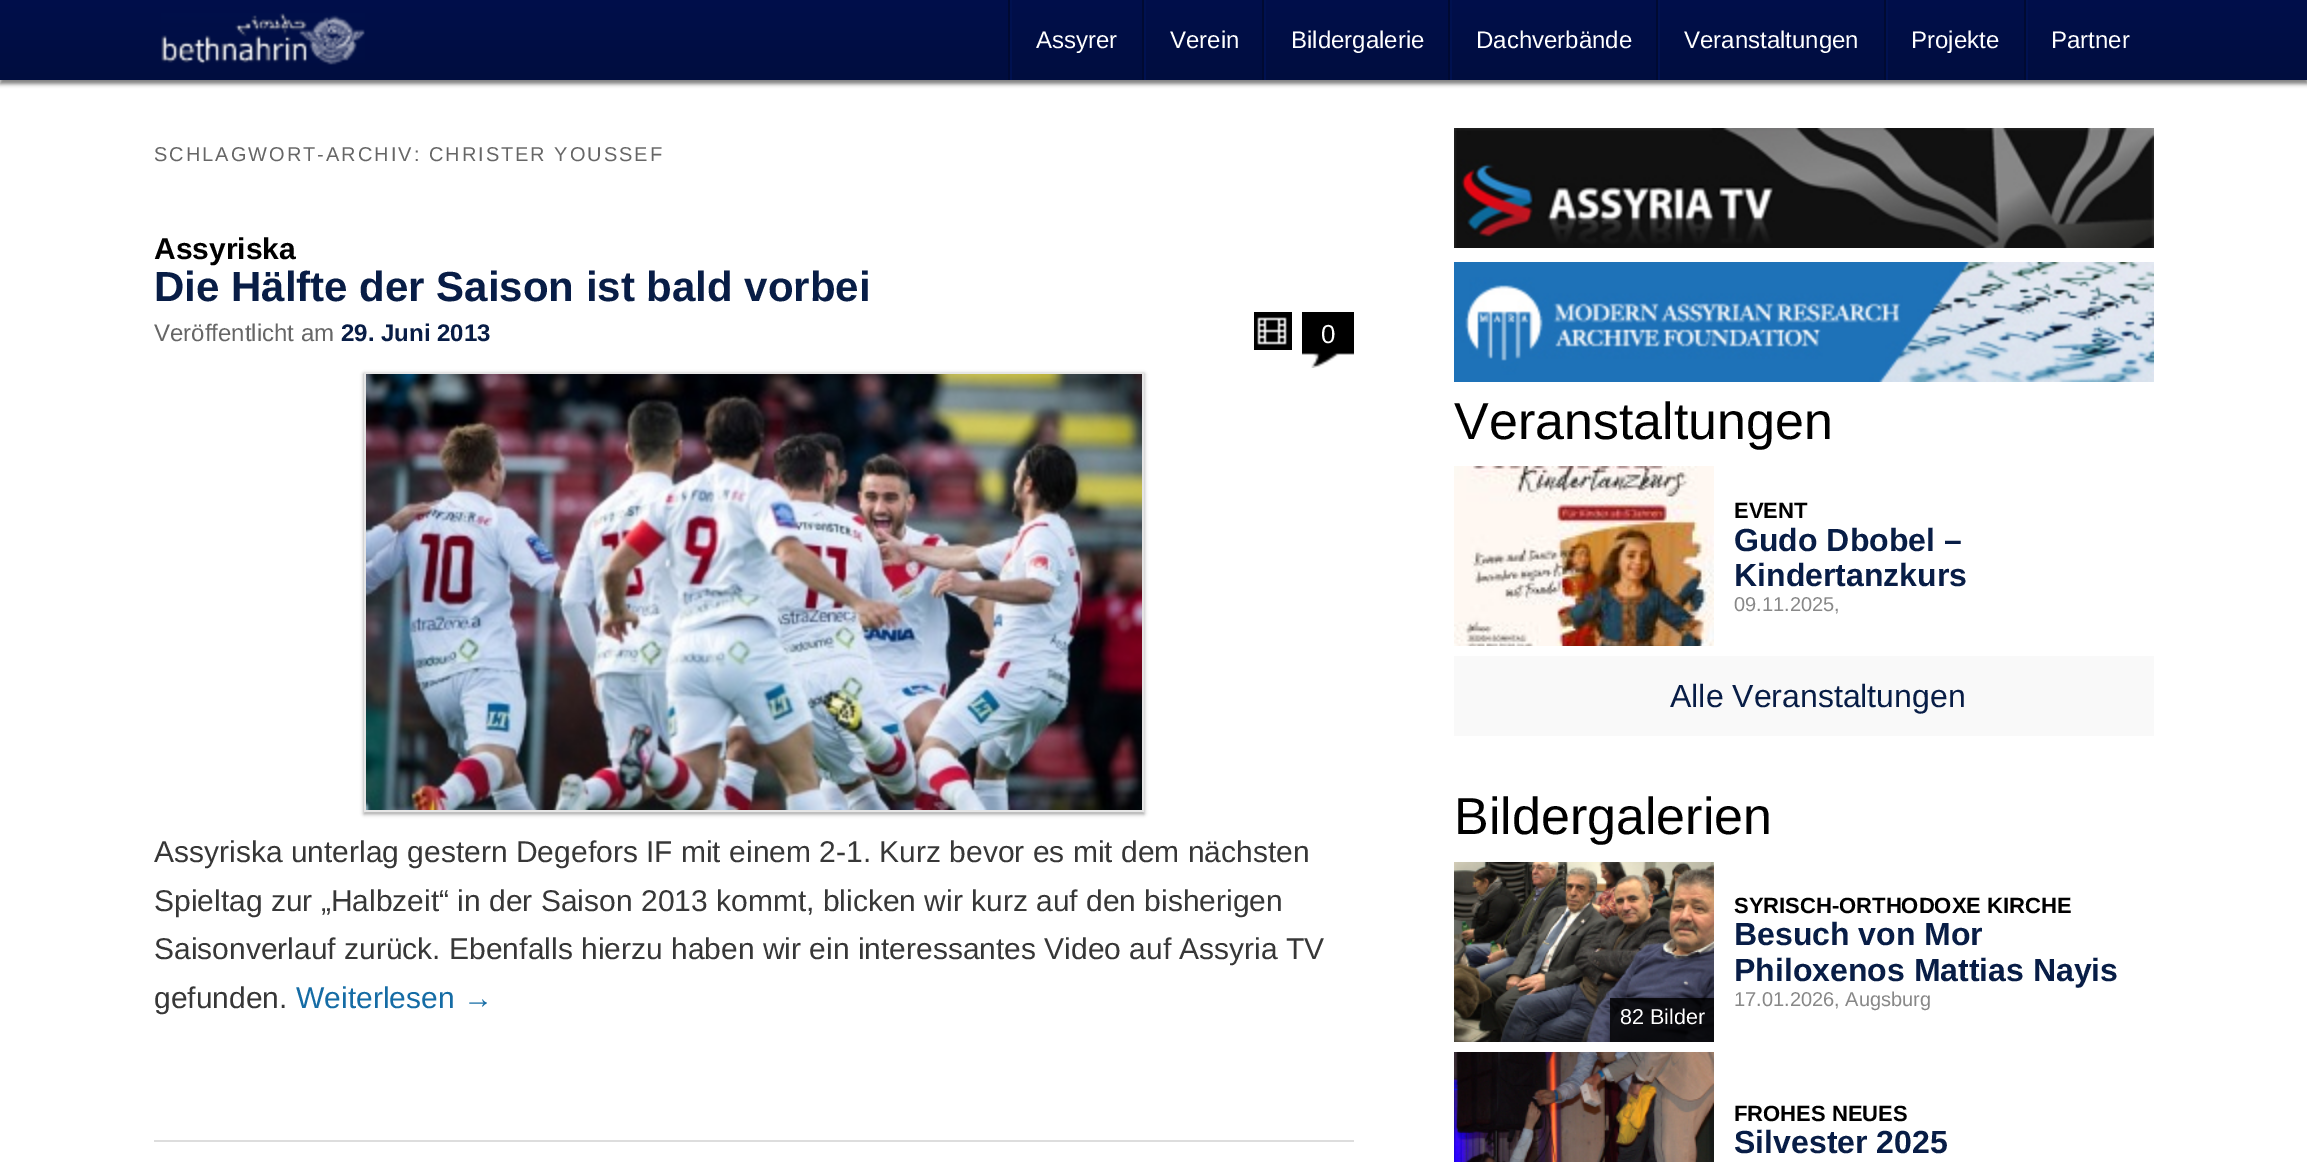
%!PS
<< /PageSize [2307 1162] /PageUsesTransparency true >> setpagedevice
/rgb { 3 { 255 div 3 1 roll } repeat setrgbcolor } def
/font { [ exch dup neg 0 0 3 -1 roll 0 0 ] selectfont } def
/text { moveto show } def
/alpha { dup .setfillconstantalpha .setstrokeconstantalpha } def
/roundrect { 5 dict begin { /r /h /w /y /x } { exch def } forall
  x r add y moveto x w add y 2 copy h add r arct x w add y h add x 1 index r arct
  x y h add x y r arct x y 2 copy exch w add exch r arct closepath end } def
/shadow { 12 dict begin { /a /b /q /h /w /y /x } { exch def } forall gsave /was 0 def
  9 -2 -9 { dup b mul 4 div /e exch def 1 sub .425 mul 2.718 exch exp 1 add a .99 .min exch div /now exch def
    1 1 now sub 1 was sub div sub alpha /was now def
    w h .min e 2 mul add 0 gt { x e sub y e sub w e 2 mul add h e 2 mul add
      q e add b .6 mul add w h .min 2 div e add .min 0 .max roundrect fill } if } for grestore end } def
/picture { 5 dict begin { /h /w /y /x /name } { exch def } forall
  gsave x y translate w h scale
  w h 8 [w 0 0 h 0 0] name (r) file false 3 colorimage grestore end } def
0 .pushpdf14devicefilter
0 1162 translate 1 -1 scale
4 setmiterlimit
255 255 255 rgb
0 0 2307 1162 rectfill
0 0 0 rgb
0 4 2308 80 0 2 0.5 shadow
gsave 0 0 moveto 2307 0 rlineto 0 80 rlineto -2307 0 rlineto closepath clip newpath
<< /ShadingType 2 /ColorSpace /DeviceRGB /Coords [1154 0 1154 80] /Extend [true true] /Function << /FunctionType 2 /Domain [0 1] /C0 [0 0.059 0.294] /C1 [0 0.051 0.247] /N 1 >> >> shfill grestore
(img_01.rgb) 161 13 204 52 picture
0 10 50 rgb
1008 0 2 80 rectfill
0 17 80 rgb
1010 0 2 80 rectfill
0 10 50 rgb
1142 0 2 80 rectfill
0 17 80 rgb
1144 0 2 80 rectfill
0 10 50 rgb
1262 0 2 80 rectfill
0 17 80 rgb
1264 0 2 80 rectfill
0 10 50 rgb
1448 0 2 80 rectfill
0 17 80 rgb
1450 0 2 80 rectfill
0 10 50 rgb
1656 0 2 80 rectfill
0 17 80 rgb
1658 0 2 80 rectfill
0 10 50 rgb
1884 0 2 80 rectfill
0 17 80 rgb
1886 0 2 80 rectfill
0 10 50 rgb
2024 0 2 80 rectfill
0 17 80 rgb
2026 0 2 80 rectfill
221 221 221 rgb
154 1140 1200 2 rectfill
0 0 0 rgb
1254 312 38 38 rectfill
(img_02.rgb) 1257 317 30 28 picture
(img_03.rgb) 1302 312 52 56 picture
364 374 780 440 0 2 0.4 shadow
230 230 230 rgb
2 setlinewidth
365 373 778 438 rectstroke
(img_04.rgb) 366 374 776 436 picture
(img_05.rgb) 1454 128 700 120 picture
(img_06.rgb) 1454 262 700 120 picture
(img_07.rgb) 1454 466 260 180 picture
249 249 249 rgb
1454 656 700 80 rectfill
(img_08.rgb) 1454 862 260 180 picture
0.8 alpha
0 0 0 rgb
1610 998 104 44 rectfill
1 alpha
(img_09.rgb) 1454 1052 260 110 picture
/LiberationSans-Regular 24 font
255 255 255 rgb
(Assyrer) 1036 48 text
(Verein) 1170 48 text
(Bildergalerie) 1291 48 text
(Dachverbände) 1476 48 text
(Veranstaltungen) 1684 48 text
(Projekte) 1911 48 text
(Partner) 2051 48 text
/LiberationSans-Regular 20 font
102 102 102 rgb
154 161 moveto 2 0 (SCHLAGWORT-ARCHIV: CHRISTER YOUSSEF) ashow
/LiberationSans-Bold 30 font
0 0 0 rgb
(Assyriska) 154 259 text
/LiberationSans-Bold 42 font
8 29 70 rgb
(Die Hälfte der Saison ist bald vorbei) 154 301 text
/LiberationSans-Regular 24 font
102 102 102 rgb
(Veröffentlicht am) 154 341 text
/LiberationSans-Bold 24 font
8 29 70 rgb
(29. Juni 2013) 341 341 text
/LiberationSans-Regular 26 font
255 255 255 rgb
(0) 1321 343 text
/LiberationSans-Regular 30 font
55 55 55 rgb
(Assyriska unterlag gestern Degefors IF mit einem 2-1. Kurz bevor es mit dem nächsten) 154 862 text
(Spieltag zur „Halbzeit“ in der Saison 2013 kommt, blicken wir kurz auf den bisherigen) 154 911 text
(Saisonverlauf zurück. Ebenfalls hierzu haben wir ein interessantes Video auf Assyria TV) 154 959 text
(gefunden.) 154 1008 text
21 108 165 rgb
(Weiterlesen →) 296 1008 text
/LiberationSans-Regular 52 font
0 0 0 rgb
(Veranstaltungen) 1454 439 text
/LiberationSans-Bold 22 font
(EVENT) 1734 518 text
/LiberationSans-Bold 32 font
8 29 70 rgb
(Gudo Dbobel –) 1734 551 text
(Kindertanzkurs) 1734 586 text
/LiberationSans-Regular 20 font
136 136 136 rgb
(09.11.2025,) 1734 611 text
/LiberationSans-Regular 32 font
8 29 70 rgb
(Alle Veranstaltungen) 1670 707 text
/LiberationSans-Regular 52 font
0 0 0 rgb
(Bildergalerien) 1454 834 text
/LiberationSans-Bold 22 font
(SYRISCH-ORTHODOXE KIRCHE) 1734 913 text
/LiberationSans-Bold 32 font
8 29 70 rgb
(Besuch von Mor) 1734 945 text
(Philoxenos Mattias Nayis) 1734 981 text
/LiberationSans-Regular 20 font
136 136 136 rgb
(17.01.2026, Augsburg) 1734 1006 text
/LiberationSans-Regular 21.5 font
255 255 255 rgb
(82 Bilder) 1620 1024 text
/LiberationSans-Bold 22 font
0 0 0 rgb
(FROHES NEUES) 1734 1121 text
/LiberationSans-Bold 32 font
8 29 70 rgb
(Silvester 2025) 1734 1153 text
.poppdf14devicefilter showpage
